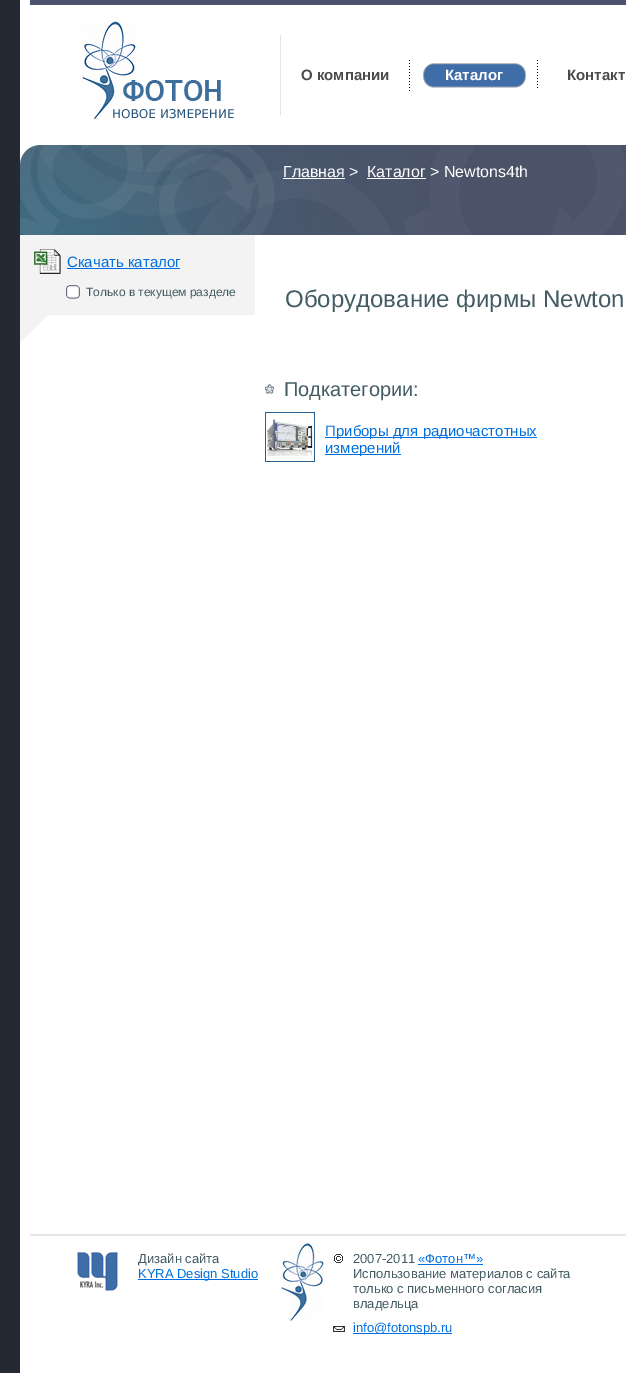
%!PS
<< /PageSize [626 1373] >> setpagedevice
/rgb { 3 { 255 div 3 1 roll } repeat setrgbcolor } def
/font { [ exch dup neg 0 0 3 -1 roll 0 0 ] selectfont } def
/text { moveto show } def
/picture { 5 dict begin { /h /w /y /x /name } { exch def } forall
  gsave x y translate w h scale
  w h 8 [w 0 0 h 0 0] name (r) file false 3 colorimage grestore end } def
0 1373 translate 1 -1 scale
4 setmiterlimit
37 41 52 rgb
0 0 626 1373 rectfill
255 255 255 rgb
20 0 606 1373 rectfill
75 82 110 rgb
30 0 596 5 rectfill
(img_01.rgb) 82 20 152 100 picture
228 228 228 rgb
280 35 1 80 rectfill
(img_02.rgb) 409 60 1 31 picture
(img_03.rgb) 537 60 1 28 picture
(img_04.rgb) 423 63 93 25 picture
(img_05.rgb) 516 63 10 25 picture
(img_06.rgb) 20 145 606 90 picture
255 255 255 rgb
283 178 62 1 rectfill
367 178 59 1 rectfill
243 243 243 rgb
20 235 235 80 rectfill
(img_07.rgb) 20 315 235 28 picture
(img_08.rgb) 34 249 27 25 picture
0 111 224 rgb
67 268 113 1 rectfill
(img_09.rgb) 66 285 14 14 picture
(img_10.rgb) 265 384 9 10 picture
(img_11.rgb) 265 412 50 50 picture
325 437 212 1 rectfill
325 454 76 1 rectfill
230 230 230 rgb
30 1234 596 2 rectfill
(img_12.rgb) 77 1252 41 39 picture
0 111 224 rgb
138 1279 120 1 rectfill
(img_13.rgb) 281 1243 43 78 picture
(img_14.rgb) 334 1254 9 9 picture
418 1264 65 1 rectfill
(img_15.rgb) 333 1326 12 6 picture
353 1333 99 1 rectfill
/LiberationSans-Bold 15 font
75 75 75 rgb
(О компании) 301 80 text
255 255 255 rgb
(Каталог) 445 80 text
75 75 75 rgb
(Контакт) 567 80 text
/LiberationSans-Regular 16 font
255 255 255 rgb
(Главная >) 283 177 text
(Каталог > Newtons4th) 367 177 text
/LiberationSans-Regular 15 font
0 111 224 rgb
(Скачать каталог) 67 267 text
/LiberationSans-Regular 12 font
67 92 99 rgb
(Только в текущем разделе) 86 296 text
/LiberationSans-Regular 24 font
(Оборудование фирмы Newton) 285 307 text
/LiberationSans-Regular 20 font
(Подкатегории:) 284 396 text
/LiberationSans-Regular 15 font
0 111 224 rgb
(Приборы для радиочастотных) 325 436 text
(измерений) 325 453 text
/LiberationSans-Regular 13 font
67 92 99 rgb
(Дизайн сайта) 138 1263 text
0 111 224 rgb
(KYRA Design Studio) 138 1278 text
67 92 99 rgb
(2007-2011) 353 1263 text
0 111 224 rgb
(«Фотон™») 418 1263 text
67 92 99 rgb
(Использование материалов с сайта) 353 1278 text
(только с письменного согласия) 353 1293 text
(владельца) 353 1308 text
0 111 224 rgb
(info@fotonspb.ru) 353 1332 text
showpage
